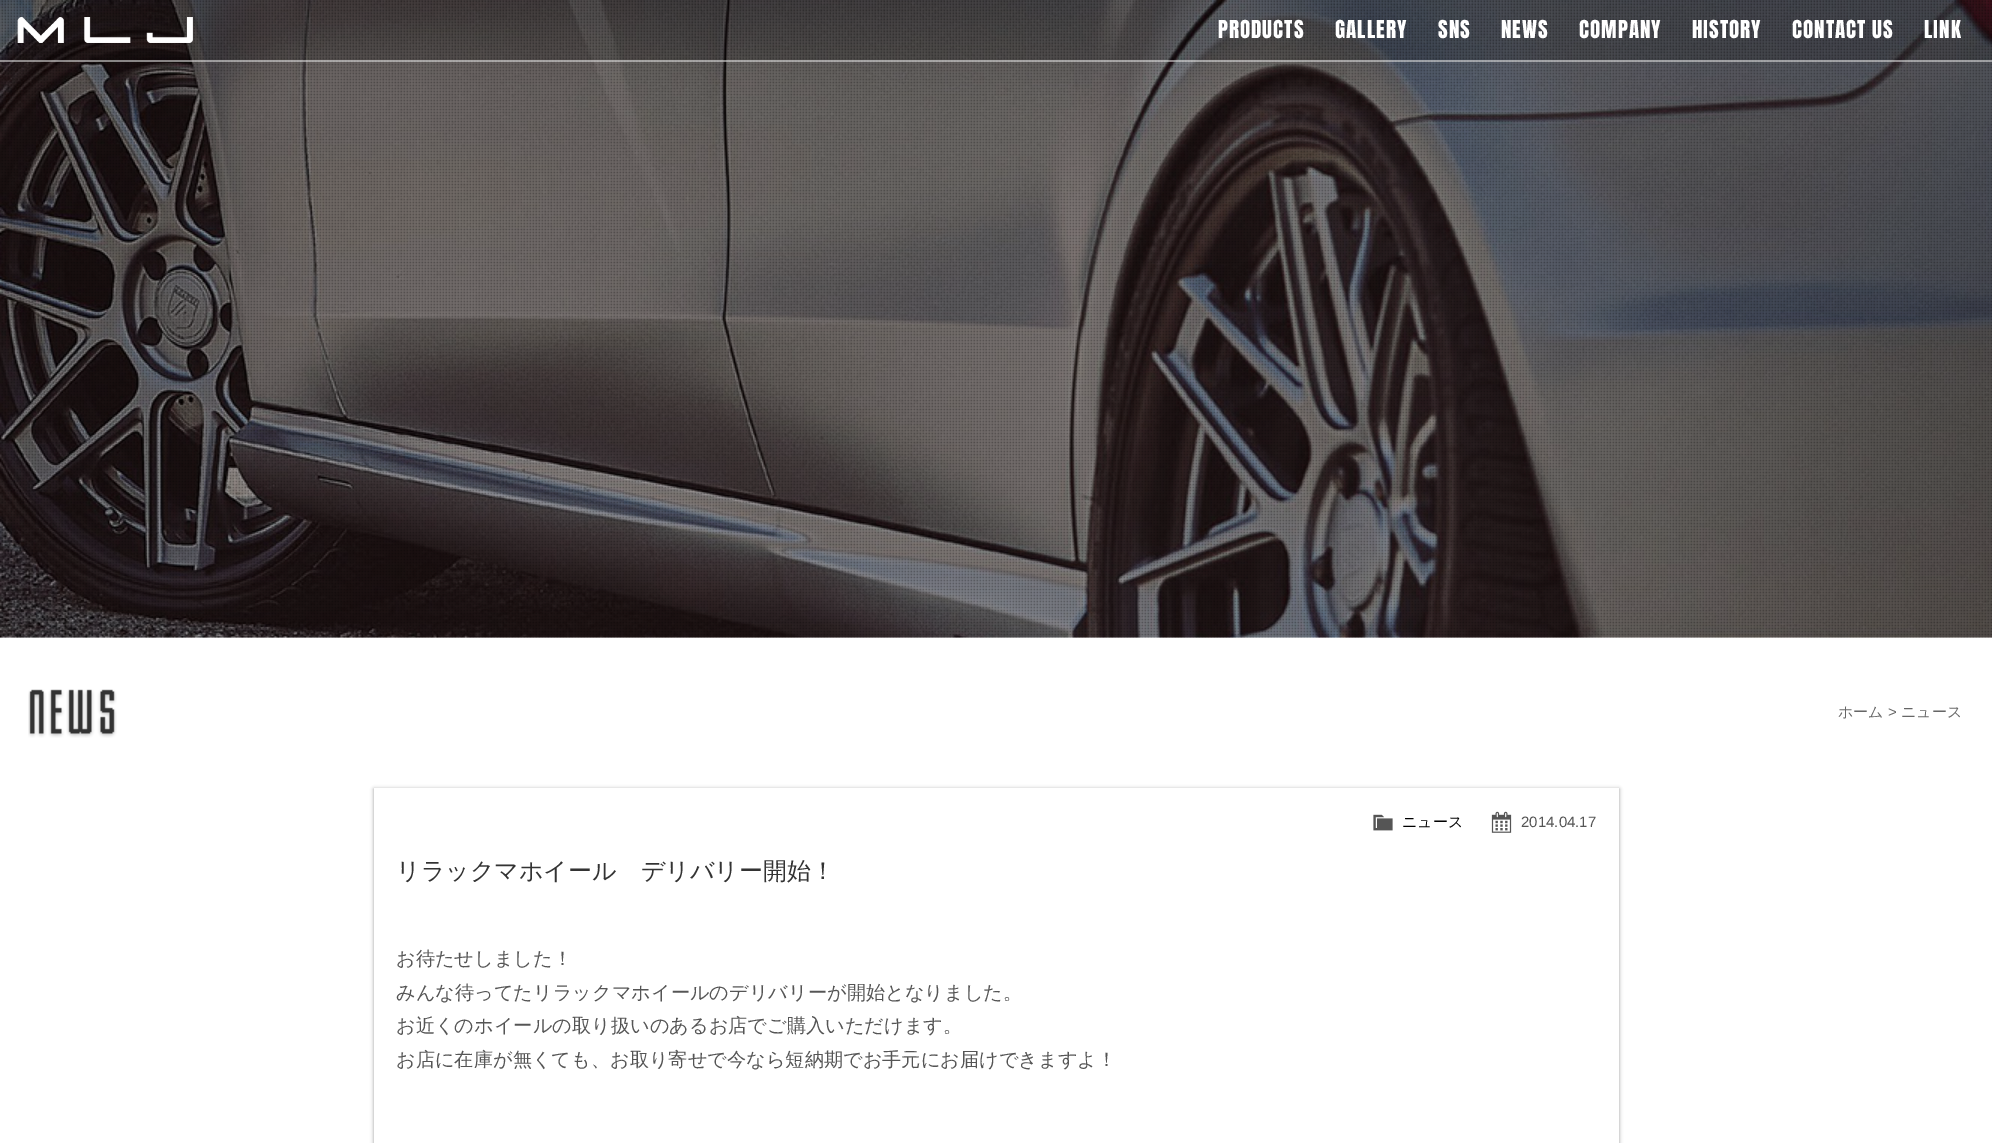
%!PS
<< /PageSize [1992 1143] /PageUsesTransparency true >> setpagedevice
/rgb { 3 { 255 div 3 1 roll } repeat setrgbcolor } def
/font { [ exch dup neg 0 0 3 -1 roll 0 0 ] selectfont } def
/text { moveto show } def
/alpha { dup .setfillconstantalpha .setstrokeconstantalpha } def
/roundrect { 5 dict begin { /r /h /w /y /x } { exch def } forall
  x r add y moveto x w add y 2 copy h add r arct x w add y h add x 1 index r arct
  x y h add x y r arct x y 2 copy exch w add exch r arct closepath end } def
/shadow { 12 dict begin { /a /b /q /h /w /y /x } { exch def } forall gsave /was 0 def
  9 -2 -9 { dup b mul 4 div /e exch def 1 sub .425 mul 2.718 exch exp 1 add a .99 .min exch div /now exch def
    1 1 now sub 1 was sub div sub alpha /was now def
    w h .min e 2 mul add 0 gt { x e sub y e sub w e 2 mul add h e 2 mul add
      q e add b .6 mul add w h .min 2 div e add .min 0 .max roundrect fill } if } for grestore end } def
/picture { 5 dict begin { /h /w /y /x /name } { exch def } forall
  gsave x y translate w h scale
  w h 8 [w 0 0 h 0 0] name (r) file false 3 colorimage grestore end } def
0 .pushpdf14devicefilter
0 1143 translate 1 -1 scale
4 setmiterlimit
255 255 255 rgb
0 0 1992 1143 rectfill
(img_01.rgb) 0 0 1992 638 picture
(img_02.rgb) 0 0 1992 62 picture
0.5 alpha
0 60 1992 2 rectfill
1 alpha
(img_03.rgb) 17 17 176 26 picture
(img_04.rgb) 28 689 89 49 picture
153 153 153 rgb
374 789 1245 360 0 2 1 shadow
255 255 255 rgb
374 788 1245 355 rectfill
(img_05.rgb) 1373 814 20 17 picture
(img_06.rgb) 1491 811 21 22 picture
/Anton-Regular 21 font
1218 38 moveto 1 0 (PRODUCTS) ashow
1335 38 moveto 1 0 (GALLERY) ashow
1438 38 moveto 1 0 (SNS) ashow
1501 38 moveto 1 0 (NEWS) ashow
1579 38 moveto 1 0 (COMPANY) ashow
1692 38 moveto 1 0 (HISTORY) ashow
1792 38 moveto 1 0 (CONTACT US) ashow
1924 38 moveto 1 0 (LINK) ashow
/WenQuanYiZenHei-Medium 15 font
102 102 102 rgb
(ホーム) 1838 717 text
/LiberationSans-Regular 15 font
(>) 1888 717 text
/WenQuanYiZenHei-Medium 15 font
(ニュース) 1901 717 text
0 0 0 rgb
(ニュース) 1402 827 text
/LiberationSans-Regular 15 font
85 85 85 rgb
(2014.04.17) 1521 827 text
/WenQuanYiZenHei-Medium 24 font
51 51 51 rgb
(リラックマホイール　デリバリー開始！) 396 879 text
/WenQuanYiZenHei-Medium 19.2 font
85 85 85 rgb
(お待たせしました！) 396 965 text
(みんな待ってたリラックマホイールのデリバリーが開始となりました。) 396 999 text
(お近くのホイールの取り扱いのあるお店でご購入いただけます。) 396 1032 text
(お店に在庫が無くても、お取り寄せで今なら短納期でお手元にお届けできますよ！) 396 1066 text
.poppdf14devicefilter showpage
